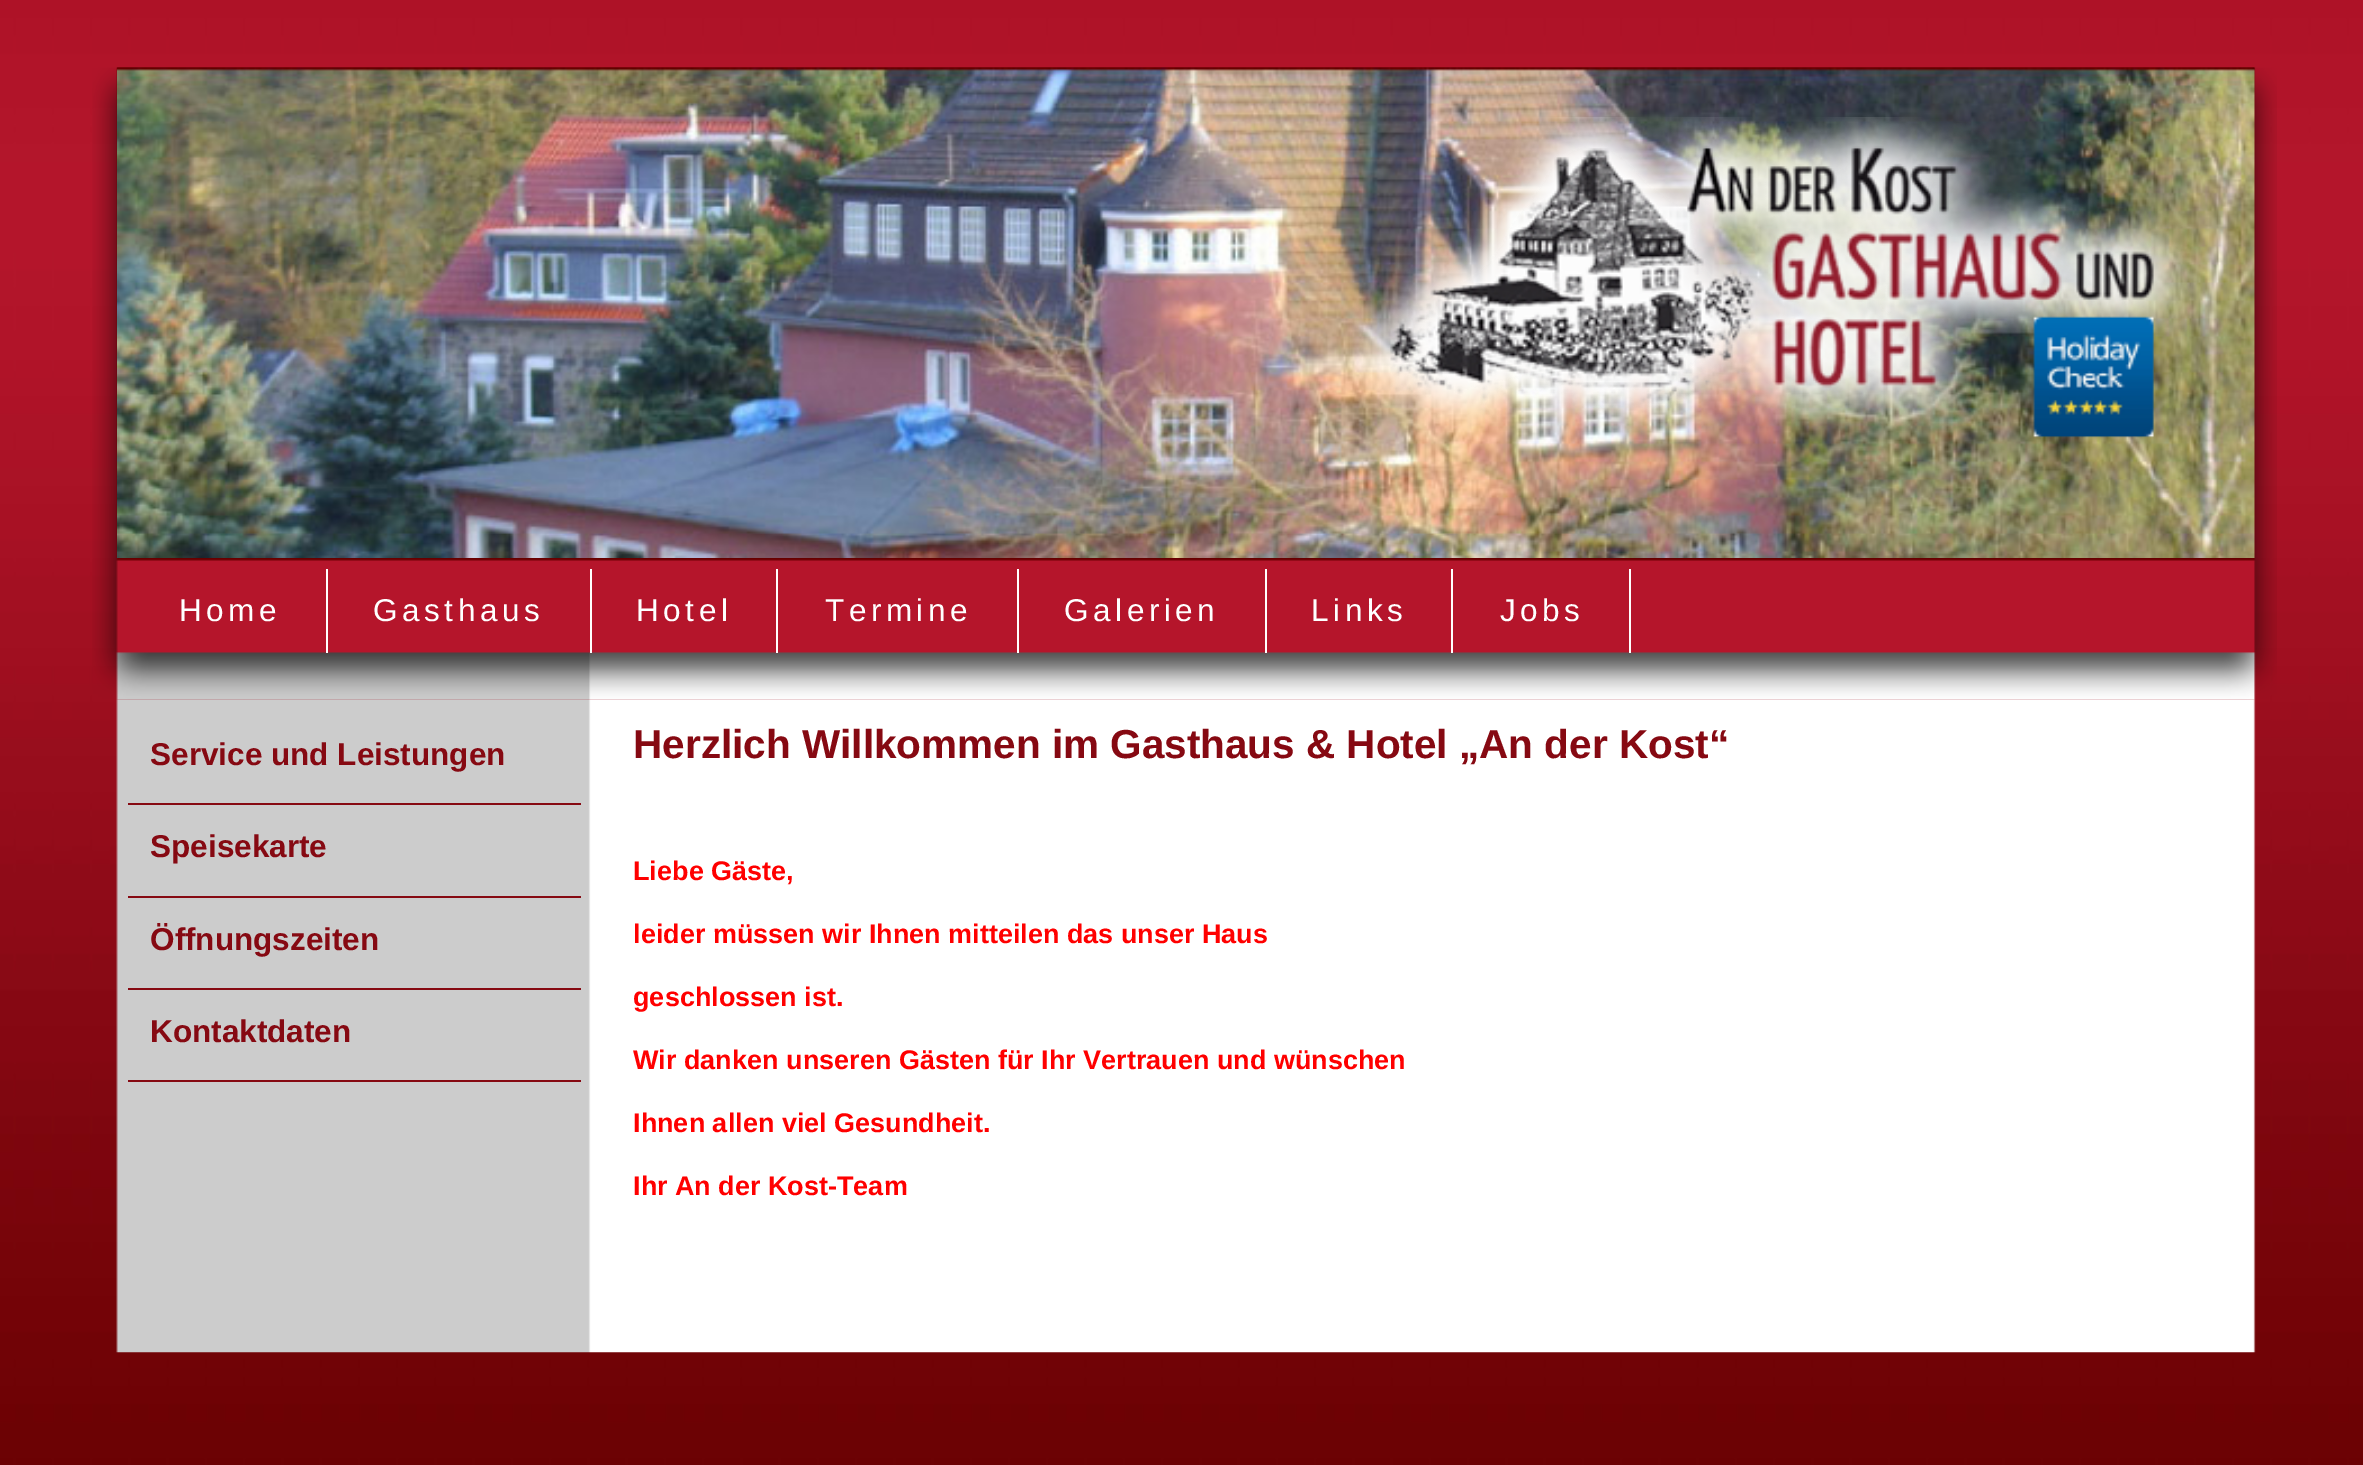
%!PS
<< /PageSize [2363 1465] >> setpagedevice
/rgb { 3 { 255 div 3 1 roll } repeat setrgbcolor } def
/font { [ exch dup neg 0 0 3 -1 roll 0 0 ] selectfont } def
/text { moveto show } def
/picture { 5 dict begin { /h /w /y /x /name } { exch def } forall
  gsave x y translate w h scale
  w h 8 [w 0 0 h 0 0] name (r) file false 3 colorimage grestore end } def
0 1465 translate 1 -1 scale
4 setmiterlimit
255 255 255 rgb
0 0 2363 1465 rectfill
(img_01.rgb) 0 0 2363 1465 picture
(img_02.rgb) 92 67 2185 633 picture
(img_03.rgb) 117 67 2138 491 picture
(img_04.rgb) 1350 117 847 321 picture
326 569 2 84 rectfill
590 569 2 84 rectfill
776 569 2 84 rectfill
1017 569 2 84 rectfill
1265 569 2 84 rectfill
1451 569 2 84 rectfill
1629 569 2 84 rectfill
(img_05.rgb) 116 699 2140 654 picture
134 9 18 rgb
128 803 453 2 rectfill
128 896 453 2 rectfill
128 988 453 2 rectfill
128 1080 453 2 rectfill
/LiberationSans-Regular 31.5 font
255 255 255 rgb
179 621 moveto 4.5 0 (Home) ashow
373 621 moveto 4.5 0 (Gasthaus) ashow
636 621 moveto 4.5 0 (Hotel) ashow
825 621 moveto 4.5 0 (Termine) ashow
1064 621 moveto 4.5 0 (Galerien) ashow
1311 621 moveto 4.5 0 (Links) ashow
1500 621 moveto 4.5 0 (Jobs) ashow
/LiberationSans-Bold 31.5 font
134 9 18 rgb
(Service und Leistungen) 150 765 text
(Speisekarte) 150 857 text
(Öffnungszeiten) 150 950 text
(Kontaktdaten) 150 1042 text
/LiberationSans-Bold 40.5 font
(Herzlich Willkommen im Gasthaus & Hotel „An der Kost“) 633 758 text
/LiberationSans-Bold 27 font
255 0 0 rgb
(Liebe Gäste,) 633 880 text
(leider müssen wir Ihnen mitteilen das unser Haus) 633 943 text
(geschlossen ist.) 633 1006 text
(Wir danken unseren Gästen für Ihr Vertrauen und wünschen) 633 1069 text
(Ihnen allen viel Gesundheit.) 633 1132 text
(Ihr An der Kost-Team) 633 1195 text
showpage
